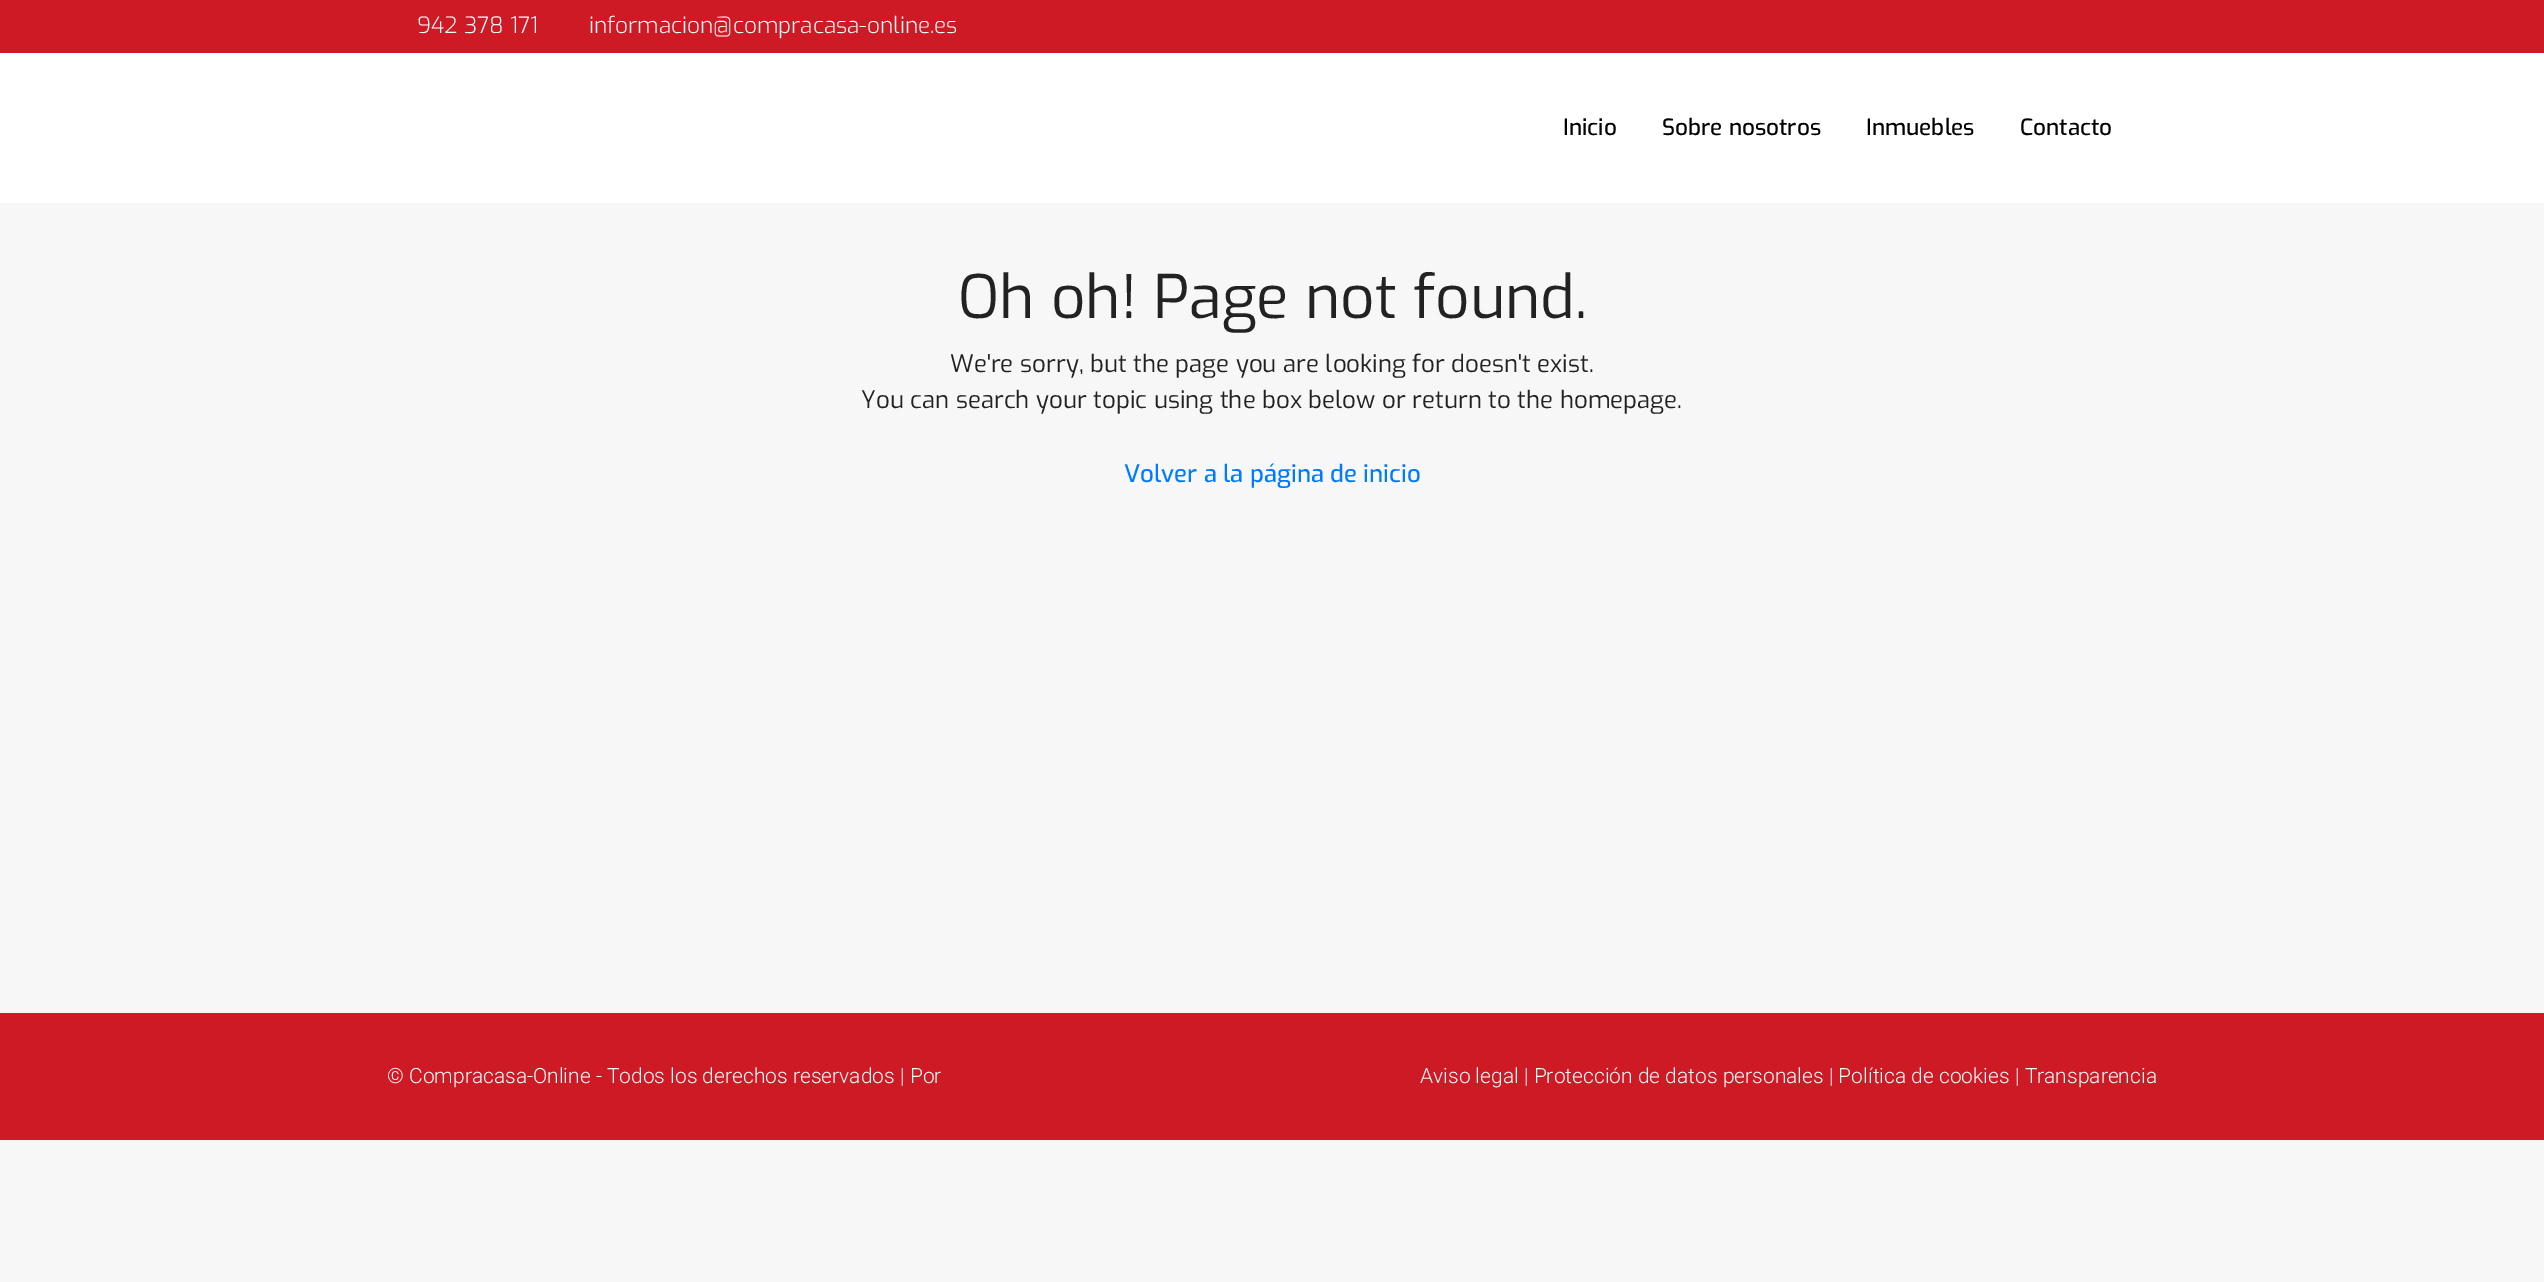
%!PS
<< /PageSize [2544 1282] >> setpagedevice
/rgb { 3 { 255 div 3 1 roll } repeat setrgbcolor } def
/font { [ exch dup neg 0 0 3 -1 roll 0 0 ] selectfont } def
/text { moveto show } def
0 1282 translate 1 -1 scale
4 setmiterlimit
247 247 247 rgb
0 0 2544 1282 rectfill
206 26 37 rgb
0 0 2544 53 rectfill
255 255 255 rgb
0 53 2544 150 rectfill
206 26 37 rgb
0 1013 2544 127 rectfill
/Exo-Light 22.5 font
255 255 255 rgb
(942 378 171) 417 33 text
(informacion@compracasa-online.es) 589 33 text
/Exo-Medium 22.5 font
0 0 0 rgb
(Inicio) 1563 135 text
(Sobre nosotros) 1662 135 text
(Inmuebles) 1866 135 text
(Contacto) 2020 135 text
/Exo-Regular 60 font
34 34 34 rgb
(Oh oh! Page not found.) 958 318 text
/Exo-Regular 24 font
(We're sorry, but the page you are looking for doesn't exist.) 950 372 text
(You can search your topic using the box below or return to the homepage.) 861 408 text
/Exo-Medium 24 font
0 123 255 rgb
(Volver a la página de inicio) 1124 482 text
/Roboto-Light 21 font
255 255 255 rgb
(© Compracasa-Online - Todos los derechos reservados | Por) 387 1083 text
(Aviso legal | Protección de datos personales | Política de cookies | Transparencia) 1420 1083 text
showpage
